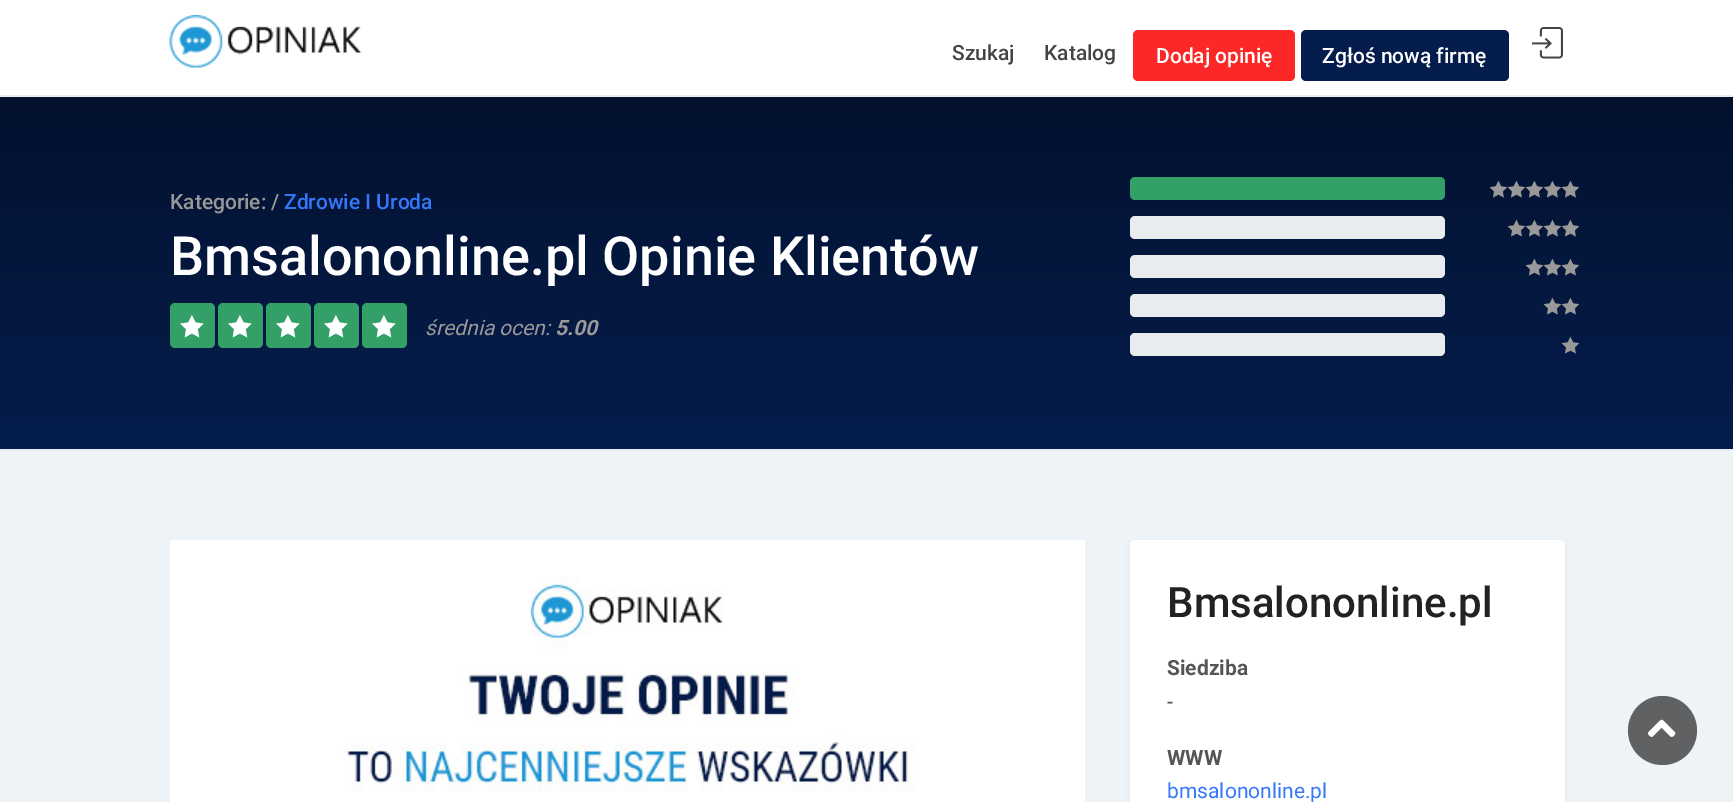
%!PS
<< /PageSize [1733 802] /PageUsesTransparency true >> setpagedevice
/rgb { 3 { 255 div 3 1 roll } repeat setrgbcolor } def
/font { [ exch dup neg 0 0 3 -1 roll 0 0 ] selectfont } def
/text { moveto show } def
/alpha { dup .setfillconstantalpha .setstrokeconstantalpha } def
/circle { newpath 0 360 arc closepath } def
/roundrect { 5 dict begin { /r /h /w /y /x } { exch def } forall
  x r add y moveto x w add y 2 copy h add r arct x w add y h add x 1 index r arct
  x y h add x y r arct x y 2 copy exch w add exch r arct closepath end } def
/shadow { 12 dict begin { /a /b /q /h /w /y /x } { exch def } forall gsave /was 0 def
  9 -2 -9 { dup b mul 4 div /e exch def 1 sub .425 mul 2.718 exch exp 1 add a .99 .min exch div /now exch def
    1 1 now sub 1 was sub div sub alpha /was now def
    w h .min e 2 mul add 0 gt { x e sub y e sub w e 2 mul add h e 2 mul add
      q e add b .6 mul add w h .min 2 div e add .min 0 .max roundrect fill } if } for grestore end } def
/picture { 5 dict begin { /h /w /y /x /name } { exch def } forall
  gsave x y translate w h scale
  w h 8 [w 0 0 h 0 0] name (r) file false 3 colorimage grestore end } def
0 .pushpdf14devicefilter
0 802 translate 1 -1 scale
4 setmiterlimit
238 243 247 rgb
0 0 1733 802 rectfill
255 255 255 rgb
0 0 1733 95 rectfill
237 237 237 rgb
0 95 1733 2 rectfill
(img_01.rgb) 169 15 193 53 picture
252 39 39 rgb
1133 30 162 51 5 roundrect fill
5 29 77 rgb
1301 30 208 51 5 roundrect fill
(img_02.rgb) 1532 27 31 32 picture
237 237 237 rgb
0 449 1733 2 rectfill
gsave 0 97 moveto 1733 0 rlineto 0 352 rlineto -1733 0 rlineto closepath clip newpath
<< /ShadingType 2 /ColorSpace /DeviceRGB /Coords [867 87 867 449] /Extend [true true] /Function << /FunctionType 2 /Domain [0 1] /C0 [0.012 0.067 0.18] /C1 [0.02 0.114 0.298] /N 1 >> >> shfill grestore
50 160 103 rgb
170 303 45 45 5 roundrect fill
(img_03.rgb) 180 315 24 23 picture
218 303 45 45 5 roundrect fill
(img_03.rgb) 228 315 24 23 picture
266 303 45 45 5 roundrect fill
(img_03.rgb) 276 315 24 23 picture
314 303 45 45 5 roundrect fill
(img_03.rgb) 324 315 24 23 picture
362 303 45 45 5 roundrect fill
(img_03.rgb) 372 315 24 23 picture
1130 177 315 23 5 roundrect fill
(img_04.rgb) 1489 180 19 18 picture
(img_05.rgb) 1507 180 19 18 picture
(img_05.rgb) 1525 180 19 18 picture
(img_05.rgb) 1543 180 19 18 picture
(img_05.rgb) 1561 180 19 18 picture
233 236 239 rgb
1130 216 315 23 5 roundrect fill
(img_06.rgb) 1507 219 19 18 picture
(img_07.rgb) 1525 219 19 18 picture
(img_07.rgb) 1543 219 19 18 picture
(img_07.rgb) 1561 219 19 18 picture
1130 255 315 23 5 roundrect fill
(img_08.rgb) 1525 258 19 18 picture
(img_09.rgb) 1543 258 19 18 picture
(img_09.rgb) 1561 258 19 18 picture
1130 294 315 23 5 roundrect fill
(img_10.rgb) 1543 297 19 18 picture
(img_11.rgb) 1561 297 19 18 picture
1130 333 315 23 5 roundrect fill
(img_12.rgb) 1561 336 19 18 picture
255 255 255 rgb
170 540 915 262 rectfill
(img_13.rgb) 339 576 576 216 picture
3 27 78 rgb
1130 543 435 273 5 3 0.06 shadow
255 255 255 rgb
1130 540 435 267 5 roundrect fill
95 97 99 rgb
1662.5 730.5 34.5 circle fill
(img_14.rgb) 1648 719 28 18 picture
/Roboto-Medium 21 font
68 68 68 rgb
(Szukaj) 952 60 text
(Katalog) 1044 60 text
255 255 255 rgb
(Dodaj opinię) 1156 63 text
(Zgłoś nową firmę) 1322 63 text
153 153 153 rgb
(Kategorie: /) 170 209 text
53 120 250 rgb
(Zdrowie I Uroda) 284 209 text
/Roboto-Medium 54 font
255 255 255 rgb
(Bmsalononline.pl Opinie Klientów) 170 275 text
/Roboto-Italic 21 font
153 153 153 rgb
(średnia ocen:) 425 335 text
/Roboto-BoldItalic 21 font
(5.00) 555 335 text
/Roboto-Medium 42 font
34 34 34 rgb
(Bmsalononline.pl) 1167 617 text
/Roboto-Bold 21 font
85 85 85 rgb
(Siedziba) 1167 675 text
/Roboto-Regular 21 font
(-) 1167 709 text
/Roboto-Bold 21 font
(WWW) 1167 765 text
/Roboto-Regular 21 font
53 120 250 rgb
(bmsalononline.pl) 1167 798 text
.poppdf14devicefilter showpage
